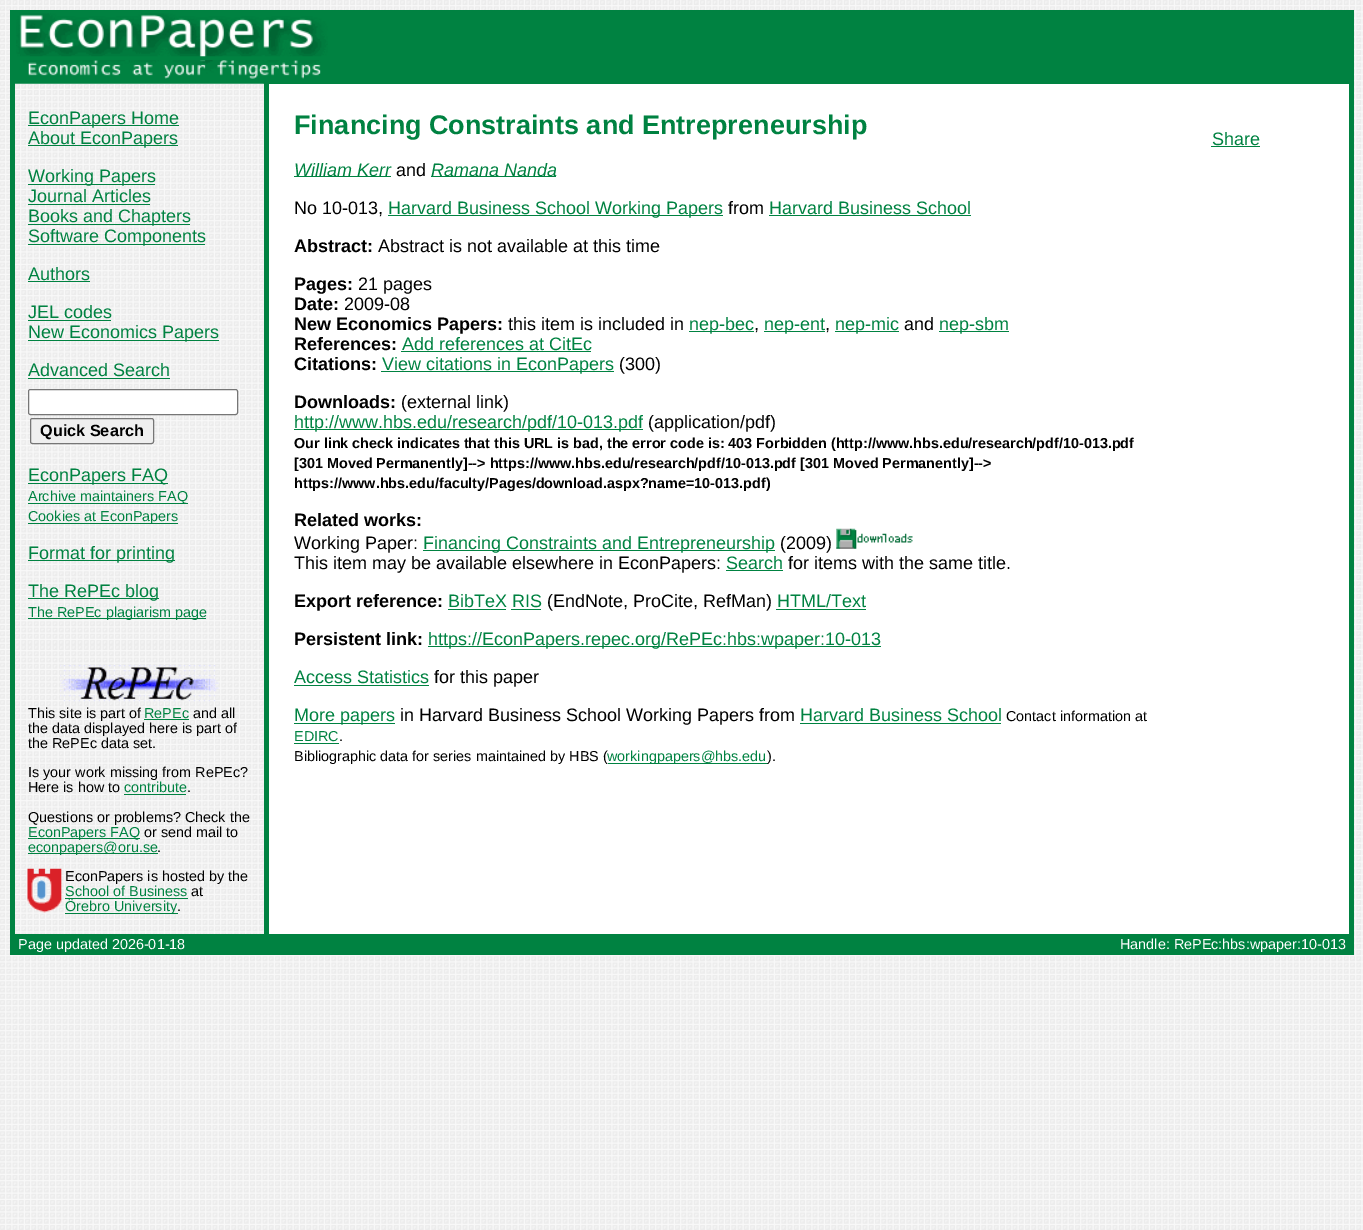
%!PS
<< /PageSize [1363 1230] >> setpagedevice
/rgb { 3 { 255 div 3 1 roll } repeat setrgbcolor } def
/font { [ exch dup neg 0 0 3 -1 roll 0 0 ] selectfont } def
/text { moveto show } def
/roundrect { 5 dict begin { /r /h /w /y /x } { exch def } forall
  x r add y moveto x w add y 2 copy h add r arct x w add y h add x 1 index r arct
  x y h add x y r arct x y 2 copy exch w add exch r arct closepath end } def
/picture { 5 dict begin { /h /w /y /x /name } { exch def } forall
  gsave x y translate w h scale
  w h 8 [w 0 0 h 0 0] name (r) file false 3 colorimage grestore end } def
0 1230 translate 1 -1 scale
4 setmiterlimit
255 255 255 rgb
0 0 1363 1230 rectfill
(img_01.rgb) 0 0 1363 1230 picture
0 130 65 rgb
10 10 5 945 rectfill
15 10 1334 50 rectfill
(img_02.rgb) 16 13 312 44 picture
1349 10 5 945 rectfill
15 60 1334 24 rectfill
(img_03.rgb) 23 60 298 19 picture
(img_04.rgb) 15 83 249 562 picture
28 125 151 1 rectfill
28 145 150 1 rectfill
28 184 127 1 rectfill
28 204 122 1 rectfill
28 224 162 1 rectfill
28 244 177 1 rectfill
28 281 62 1 rectfill
28 320 83 1 rectfill
28 340 191 1 rectfill
28 378 142 1 rectfill
255 255 255 rgb
28.5 389.5 209 25 2 roundrect gsave fill grestore
118 118 118 rgb
stroke
239 239 239 rgb
30.5 418.5 123 25 2 roundrect gsave fill grestore
118 118 118 rgb
stroke
0 130 65 rgb
28 483 140 1 rectfill
28 503 160 1 rectfill
28 523 150 1 rectfill
28 560 147 1 rectfill
28 598 131 1 rectfill
28 618 178 1 rectfill
264 84 5 850 rectfill
255 255 255 rgb
269 84 1080 850 rectfill
0 130 65 rgb
294 176 97 1 rectfill
431 176 125 1 rectfill
388 215 335 1 rectfill
769 215 202 1 rectfill
689 331 65 1 rectfill
764 331 61 1 rectfill
835 331 64 1 rectfill
939 331 70 1 rectfill
401 351 190 1 rectfill
381 371 233 1 rectfill
294 429 349 1 rectfill
423 550 352 1 rectfill
(img_05.rgb) 836 528 77 21 picture
726 570 57 1 rectfill
448 609 58 1 rectfill
776 609 90 1 rectfill
511 609 30 1 rectfill
428 646 453 1 rectfill
294 685 135 1 rectfill
294 723 101 1 rectfill
800 723 201 1 rectfill
294 743 45 1 rectfill
608 763 160 1 rectfill
1211 146 49 1 rectfill
(img_06.rgb) 15 645 249 289 picture
(img_07.rgb) 60 665 159 37 picture
144 719 45 1 rectfill
124 794 62 1 rectfill
28 838 112 1 rectfill
28 853 130 1 rectfill
(img_08.rgb) 27 868 35 45 picture
65 898 123 1 rectfill
65 913 113 1 rectfill
15 934 1334 21 rectfill
/LiberationSans-Regular 18 font
(EconPapers Home) 28 124 text
(About EconPapers) 28 144 text
(Working Papers) 28 182 text
(Journal Articles) 28 202 text
(Books and Chapters) 28 222 text
(Software Components) 28 242 text
(Authors) 28 280 text
(JEL codes) 28 318 text
(New Economics Papers) 28 338 text
(Advanced Search) 28 376 text
/LiberationSans-Bold 16.25 font
0 0 0 rgb
(Quick Search) 40 436 text
/LiberationSans-Regular 18 font
0 130 65 rgb
(EconPapers FAQ) 28 481 text
/LiberationSans-Regular 14.4 font
(Archive maintainers FAQ) 28 501 text
(Cookies at EconPapers) 28 521 text
/LiberationSans-Regular 18 font
(Format for printing) 28 559 text
(The RePEc blog) 28 597 text
/LiberationSans-Regular 14.4 font
(The RePEc plagiarism page) 28 617 text
/LiberationSans-Bold 27 font
(Financing Constraints and Entrepreneurship) 294 134 text
/LiberationSans-Italic 18 font
(William Kerr) 294 176 text
/LiberationSans-Regular 18 font
0 0 0 rgb
(and) 396 176 text
/LiberationSans-Italic 18 font
0 130 65 rgb
(Ramana Nanda) 431 176 text
/LiberationSans-Regular 18 font
0 0 0 rgb
(No 10-013,) 294 214 text
0 130 65 rgb
(Harvard Business School Working Papers) 388 214 text
0 0 0 rgb
(from) 728 214 text
0 130 65 rgb
(Harvard Business School) 769 214 text
/LiberationSans-Bold 18 font
0 0 0 rgb
(Abstract:) 294 252 text
/LiberationSans-Regular 18 font
(Abstract is not available at this time) 378 252 text
/LiberationSans-Bold 18 font
(Pages:) 294 290 text
/LiberationSans-Regular 18 font
(21 pages) 358 290 text
/LiberationSans-Bold 18 font
(Date:) 294 310 text
/LiberationSans-Regular 18 font
(2009-08) 344 310 text
/LiberationSans-Bold 18 font
(New Economics Papers:) 294 330 text
/LiberationSans-Regular 18 font
(this item is included in) 508 330 text
0 130 65 rgb
(nep-bec) 689 330 text
0 0 0 rgb
(,) 754 330 text
0 130 65 rgb
(nep-ent) 764 330 text
0 0 0 rgb
(,) 825 330 text
0 130 65 rgb
(nep-mic) 835 330 text
0 0 0 rgb
(and) 904 330 text
0 130 65 rgb
(nep-sbm) 939 330 text
/LiberationSans-Bold 18 font
0 0 0 rgb
(References:) 294 350 text
/LiberationSans-Regular 18 font
0 130 65 rgb
(Add references at CitEc) 402 350 text
/LiberationSans-Bold 18 font
0 0 0 rgb
(Citations:) 294 370 text
/LiberationSans-Regular 18 font
0 130 65 rgb
(View citations in EconPapers) 382 370 text
0 0 0 rgb
(\(300\)) 619 370 text
/LiberationSans-Bold 18 font
(Downloads:) 294 408 text
/LiberationSans-Regular 18 font
(\(external link\)) 401 408 text
0 130 65 rgb
(http://www.hbs.edu/research/pdf/10-013.pdf) 294 428 text
0 0 0 rgb
(\(application/pdf\)) 648 428 text
/LiberationSans-Bold 14.4 font
(Our link check indicates that this URL is bad, the error code is: 403 Forbidden \(http://www.hbs.edu/research/pdf/10-013.pdf) 294 448 text
([301 Moved Permanently]--> https://www.hbs.edu/research/pdf/10-013.pdf [301 Moved Permanently]-->) 294 468 text
(https://www.hbs.edu/faculty/Pages/download.aspx?name=10-013.pdf\)) 294 488 text
/LiberationSans-Bold 18 font
(Related works:) 294 526 text
/LiberationSans-Regular 18 font
(Working Paper:) 294 549 text
0 130 65 rgb
(Financing Constraints and Entrepreneurship) 423 549 text
0 0 0 rgb
(\(2009\)) 780 549 text
(This item may be available elsewhere in EconPapers:) 294 569 text
0 130 65 rgb
(Search) 726 569 text
0 0 0 rgb
(for items with the same title.) 788 569 text
/LiberationSans-Bold 18 font
(Export reference:) 294 607 text
/LiberationSans-Regular 18 font
0 130 65 rgb
(BibTeX RIS) 448 607 text
0 0 0 rgb
(\(EndNote, ProCite, RefMan\)) 547 607 text
0 130 65 rgb
(HTML/Text) 777 607 text
/LiberationSans-Bold 18 font
0 0 0 rgb
(Persistent link:) 294 645 text
/LiberationSans-Regular 18 font
0 130 65 rgb
(https://EconPapers.repec.org/RePEc:hbs:wpaper:10-013) 428 645 text
(Access Statistics) 294 683 text
0 0 0 rgb
(for this paper) 434 683 text
0 130 65 rgb
(More papers) 294 721 text
0 0 0 rgb
(in Harvard Business School Working Papers from) 400 721 text
0 130 65 rgb
(Harvard Business School) 800 721 text
/LiberationSans-Regular 14.4 font
0 0 0 rgb
(Contact information at) 1006 721 text
0 130 65 rgb
(EDIRC) 294 741 text
0 0 0 rgb
(.) 339 741 text
(Bibliographic data for series maintained by HBS \() 294 761 text
0 130 65 rgb
(workingpapers@hbs.edu) 607 761 text
0 0 0 rgb
(\).) 767 761 text
/LiberationSans-Regular 18 font
0 130 65 rgb
(Share) 1212 145 text
/LiberationSans-Regular 14.4 font
0 0 0 rgb
(This site is part of) 28 718 text
0 130 65 rgb
(RePEc) 144 718 text
0 0 0 rgb
(and all) 193 718 text
(the data displayed here is part of) 28 733 text
(the RePEc data set.) 28 748 text
(Is your work missing from RePEc?) 28 777 text
(Here is how to) 28 792 text
0 130 65 rgb
(contribute) 124 792 text
0 0 0 rgb
(.) 187 792 text
(Questions or problems? Check the) 28 822 text
0 130 65 rgb
(EconPapers FAQ) 28 837 text
0 0 0 rgb
(or send mail to) 144 837 text
0 130 65 rgb
(econpapers@oru.se) 28 852 text
0 0 0 rgb
(.) 157 852 text
(EconPapers is hosted by the) 65 881 text
0 130 65 rgb
(School of Business) 65 896 text
0 0 0 rgb
(at) 191 896 text
0 130 65 rgb
(Örebro University) 65 911 text
0 0 0 rgb
(.) 177 911 text
255 255 255 rgb
(Page updated 2026-01-18) 18 949 text
(Handle: RePEc:hbs:wpaper:10-013) 1120 949 text
showpage
